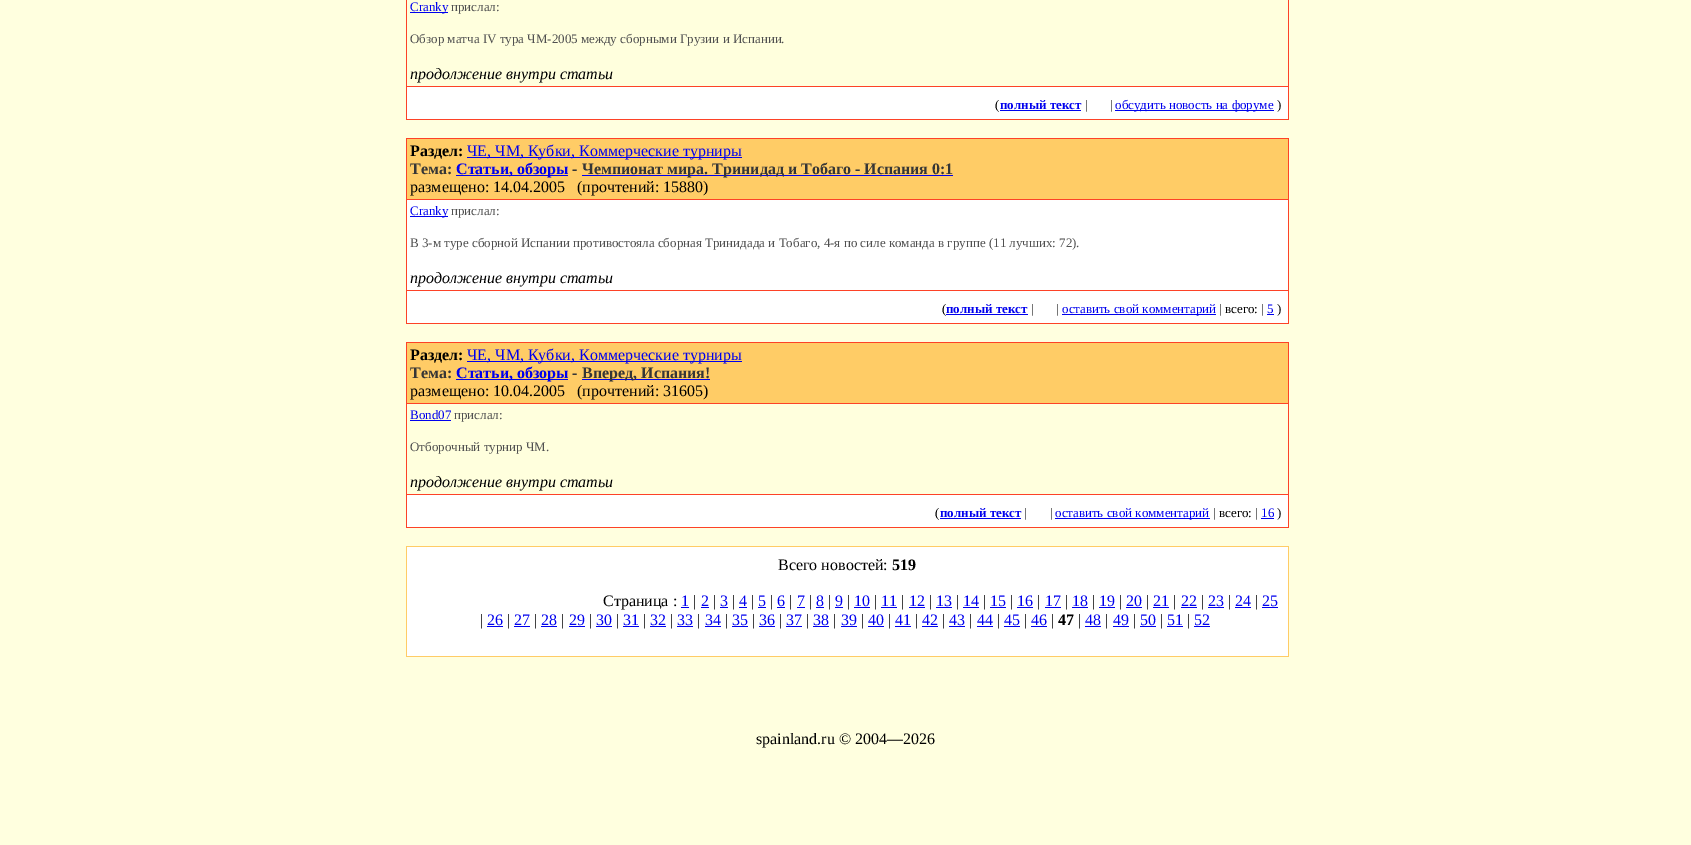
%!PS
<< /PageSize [1691 845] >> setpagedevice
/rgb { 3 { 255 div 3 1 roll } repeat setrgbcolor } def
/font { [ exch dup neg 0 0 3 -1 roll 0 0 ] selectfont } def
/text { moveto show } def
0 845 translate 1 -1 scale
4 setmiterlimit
255 255 223 rgb
0 0 1691 845 rectfill
253 66 39 rgb
406 0 883 120 rectfill
255 255 221 rgb
407 0 881 86 rectfill
0 0 238 rgb
410 12 38 1 rectfill
255 255 255 rgb
407 87 881 32 rectfill
0 0 238 rgb
1000 110 81 1 rectfill
1115 110 159 1 rectfill
253 66 39 rgb
406 138 883 186 rectfill
255 204 102 rgb
407 139 881 60 rectfill
0 0 238 rgb
467 157 275 1 rectfill
456 175 112 1 rectfill
582 175 371 1 rectfill
255 255 255 rgb
407 200 881 90 rectfill
0 0 238 rgb
410 216 38 1 rectfill
255 255 255 rgb
407 291 881 32 rectfill
0 0 238 rgb
946 314 82 1 rectfill
1062 314 154 1 rectfill
1267 314 7 1 rectfill
253 66 39 rgb
406 342 883 186 rectfill
255 204 102 rgb
407 343 881 60 rectfill
0 0 238 rgb
467 361 275 1 rectfill
456 379 112 1 rectfill
582 379 128 1 rectfill
255 255 221 rgb
407 404 881 90 rectfill
0 0 238 rgb
410 420 41 1 rectfill
255 255 255 rgb
407 495 881 32 rectfill
0 0 238 rgb
940 518 81 1 rectfill
1055 518 155 1 rectfill
1261 518 13 1 rectfill
255 204 102 rgb
406 546 883 111 rectfill
255 255 255 rgb
407 547 881 109 rectfill
0 0 238 rgb
681 607 8 1 rectfill
701 607 8 1 rectfill
720 607 8 1 rectfill
739 607 8 1 rectfill
758 607 8 1 rectfill
777 607 8 1 rectfill
797 607 8 1 rectfill
816 607 8 1 rectfill
835 607 8 1 rectfill
854 607 16 1 rectfill
881 607 16 1 rectfill
909 607 16 1 rectfill
936 607 16 1 rectfill
963 607 16 1 rectfill
990 607 16 1 rectfill
1017 607 16 1 rectfill
1045 607 16 1 rectfill
1072 607 16 1 rectfill
1099 607 16 1 rectfill
1126 607 16 1 rectfill
1153 607 16 1 rectfill
1181 607 16 1 rectfill
1208 607 16 1 rectfill
1235 607 16 1 rectfill
1262 607 16 1 rectfill
487 626 16 1 rectfill
514 626 16 1 rectfill
541 626 16 1 rectfill
569 626 16 1 rectfill
596 626 16 1 rectfill
623 626 16 1 rectfill
650 626 16 1 rectfill
677 626 16 1 rectfill
705 626 16 1 rectfill
732 626 16 1 rectfill
759 626 16 1 rectfill
786 626 16 1 rectfill
813 626 16 1 rectfill
841 626 16 1 rectfill
868 626 16 1 rectfill
895 626 16 1 rectfill
922 626 16 1 rectfill
949 626 16 1 rectfill
977 626 16 1 rectfill
1004 626 16 1 rectfill
1031 626 16 1 rectfill
1085 626 16 1 rectfill
1113 626 16 1 rectfill
1140 626 16 1 rectfill
1167 626 16 1 rectfill
1194 626 16 1 rectfill
/LiberationSerif-Regular 13 font
(Cranky) 410 11 text
80 80 80 rgb
(прислал:) 451 11 text
(Обзор матча IV тура ЧМ-2005 между сборными Грузии и Испании.) 410 43 text
/LiberationSerif-Italic 16 font
0 0 0 rgb
(продолжение внутри статьи) 410 79 text
/LiberationSerif-Regular 13 font
(\() 995 109 text
/LiberationSerif-Bold 13 font
0 0 238 rgb
(полный текст) 1000 109 text
/LiberationSerif-Regular 13 font
0 0 0 rgb
(|) 1085 109 text
(|) 1110 109 text
0 0 238 rgb
(обсудить новость на форуме) 1115 109 text
0 0 0 rgb
(\)) 1277 109 text
/LiberationSerif-Bold 16 font
(Раздел:) 410 156 text
/LiberationSerif-Regular 16 font
0 0 238 rgb
(ЧЕ, ЧМ, Кубки, Коммерческие турниры) 467 156 text
/LiberationSerif-Bold 16 font
54 54 54 rgb
(Тема:) 410 174 text
0 0 238 rgb
(Статьи, обзоры) 456 174 text
54 54 54 rgb
(-) 572 174 text
(Чемпионат мира. Тринидад и Тобаго - Испания 0:1) 582 174 text
/LiberationSerif-Regular 16 font
0 0 0 rgb
(размещено: 14.04.2005   \(прочтений: 15880\)) 410 192 text
/LiberationSerif-Regular 13 font
0 0 238 rgb
(Cranky) 410 215 text
80 80 80 rgb
(прислал:) 451 215 text
(В 3-м туре сборной Испании противостояла сборная Тринидада и Тобаго, 4-я по силе команда в группе \(11 лучших: 72\).) 410 247 text
/LiberationSerif-Italic 16 font
0 0 0 rgb
(продолжение внутри статьи) 410 283 text
/LiberationSerif-Regular 13 font
(\() 942 313 text
/LiberationSerif-Bold 13 font
0 0 238 rgb
(полный текст) 946 313 text
/LiberationSerif-Regular 13 font
0 0 0 rgb
(|) 1031 313 text
(|) 1056 313 text
0 0 238 rgb
(оставить свой комментарий) 1062 313 text
0 0 0 rgb
(| всего: |) 1219 313 text
0 0 238 rgb
(5) 1267 313 text
0 0 0 rgb
(\)) 1277 313 text
/LiberationSerif-Bold 16 font
(Раздел:) 410 360 text
/LiberationSerif-Regular 16 font
0 0 238 rgb
(ЧЕ, ЧМ, Кубки, Коммерческие турниры) 467 360 text
/LiberationSerif-Bold 16 font
54 54 54 rgb
(Тема:) 410 378 text
0 0 238 rgb
(Статьи, обзоры) 456 378 text
54 54 54 rgb
(-) 572 378 text
(Вперед, Испания!) 582 378 text
/LiberationSerif-Regular 16 font
0 0 0 rgb
(размещено: 10.04.2005   \(прочтений: 31605\)) 410 396 text
/LiberationSerif-Regular 13 font
0 0 238 rgb
(Bond07) 410 419 text
80 80 80 rgb
(прислал:) 454 419 text
(Отборочный турнир ЧМ.) 410 451 text
/LiberationSerif-Italic 16 font
0 0 0 rgb
(продолжение внутри статьи) 410 487 text
/LiberationSerif-Regular 13 font
(\() 935 517 text
/LiberationSerif-Bold 13 font
0 0 238 rgb
(полный текст) 940 517 text
/LiberationSerif-Regular 13 font
0 0 0 rgb
(|) 1024 517 text
(|) 1050 517 text
0 0 238 rgb
(оставить свой комментарий) 1055 517 text
0 0 0 rgb
(| всего: |) 1213 517 text
0 0 238 rgb
(16) 1261 517 text
0 0 0 rgb
(\)) 1277 517 text
/LiberationSerif-Regular 16 font
(Всего новостей:) 778 570 text
/LiberationSerif-Bold 16 font
(519) 892 570 text
/LiberationSerif-Regular 16 font
(Страница :) 603 606 text
0 0 238 rgb
(1) 681 606 text
0 0 0 rgb
(|) 693 606 text
0 0 238 rgb
(2) 701 606 text
0 0 0 rgb
(|) 713 606 text
0 0 238 rgb
(3) 720 606 text
0 0 0 rgb
(|) 732 606 text
0 0 238 rgb
(4) 739 606 text
0 0 0 rgb
(|) 751 606 text
0 0 238 rgb
(5) 758 606 text
0 0 0 rgb
(|) 770 606 text
0 0 238 rgb
(6) 777 606 text
0 0 0 rgb
(|) 789 606 text
0 0 238 rgb
(7) 797 606 text
0 0 0 rgb
(|) 809 606 text
0 0 238 rgb
(8) 816 606 text
0 0 0 rgb
(|) 828 606 text
0 0 238 rgb
(9) 835 606 text
0 0 0 rgb
(|) 847 606 text
0 0 238 rgb
(10) 854 606 text
0 0 0 rgb
(|) 874 606 text
0 0 238 rgb
(11) 881 606 text
0 0 0 rgb
(|) 901 606 text
0 0 238 rgb
(12) 909 606 text
0 0 0 rgb
(|) 929 606 text
0 0 238 rgb
(13) 936 606 text
0 0 0 rgb
(|) 956 606 text
0 0 238 rgb
(14) 963 606 text
0 0 0 rgb
(|) 983 606 text
0 0 238 rgb
(15) 990 606 text
0 0 0 rgb
(|) 1010 606 text
0 0 238 rgb
(16) 1017 606 text
0 0 0 rgb
(|) 1037 606 text
0 0 238 rgb
(17) 1045 606 text
0 0 0 rgb
(|) 1065 606 text
0 0 238 rgb
(18) 1072 606 text
0 0 0 rgb
(|) 1092 606 text
0 0 238 rgb
(19) 1099 606 text
0 0 0 rgb
(|) 1119 606 text
0 0 238 rgb
(20) 1126 606 text
0 0 0 rgb
(|) 1146 606 text
0 0 238 rgb
(21) 1153 606 text
0 0 0 rgb
(|) 1173 606 text
0 0 238 rgb
(22) 1181 606 text
0 0 0 rgb
(|) 1201 606 text
0 0 238 rgb
(23) 1208 606 text
0 0 0 rgb
(|) 1228 606 text
0 0 238 rgb
(24) 1235 606 text
0 0 0 rgb
(|) 1255 606 text
0 0 238 rgb
(25) 1262 606 text
0 0 0 rgb
(|) 480 625 text
0 0 238 rgb
(26) 487 625 text
0 0 0 rgb
(|) 507 625 text
0 0 238 rgb
(27) 514 625 text
0 0 0 rgb
(|) 534 625 text
0 0 238 rgb
(28) 541 625 text
0 0 0 rgb
(|) 561 625 text
0 0 238 rgb
(29) 569 625 text
0 0 0 rgb
(|) 589 625 text
0 0 238 rgb
(30) 596 625 text
0 0 0 rgb
(|) 616 625 text
0 0 238 rgb
(31) 623 625 text
0 0 0 rgb
(|) 643 625 text
0 0 238 rgb
(32) 650 625 text
0 0 0 rgb
(|) 670 625 text
0 0 238 rgb
(33) 677 625 text
0 0 0 rgb
(|) 697 625 text
0 0 238 rgb
(34) 705 625 text
0 0 0 rgb
(|) 725 625 text
0 0 238 rgb
(35) 732 625 text
0 0 0 rgb
(|) 752 625 text
0 0 238 rgb
(36) 759 625 text
0 0 0 rgb
(|) 779 625 text
0 0 238 rgb
(37) 786 625 text
0 0 0 rgb
(|) 806 625 text
0 0 238 rgb
(38) 813 625 text
0 0 0 rgb
(|) 833 625 text
0 0 238 rgb
(39) 841 625 text
0 0 0 rgb
(|) 861 625 text
0 0 238 rgb
(40) 868 625 text
0 0 0 rgb
(|) 888 625 text
0 0 238 rgb
(41) 895 625 text
0 0 0 rgb
(|) 915 625 text
0 0 238 rgb
(42) 922 625 text
0 0 0 rgb
(|) 942 625 text
0 0 238 rgb
(43) 949 625 text
0 0 0 rgb
(|) 969 625 text
0 0 238 rgb
(44) 977 625 text
0 0 0 rgb
(|) 997 625 text
0 0 238 rgb
(45) 1004 625 text
0 0 0 rgb
(|) 1024 625 text
0 0 238 rgb
(46) 1031 625 text
0 0 0 rgb
(|) 1051 625 text
/LiberationSerif-Bold 16 font
(47) 1058 625 text
/LiberationSerif-Regular 16 font
(|) 1078 625 text
0 0 238 rgb
(48) 1085 625 text
0 0 0 rgb
(|) 1105 625 text
0 0 238 rgb
(49) 1113 625 text
0 0 0 rgb
(|) 1133 625 text
0 0 238 rgb
(50) 1140 625 text
0 0 0 rgb
(|) 1160 625 text
0 0 238 rgb
(51) 1167 625 text
0 0 0 rgb
(|) 1187 625 text
0 0 238 rgb
(52) 1194 625 text
0 0 0 rgb
(spainland.ru © 2004—2026) 756 744 text
showpage
